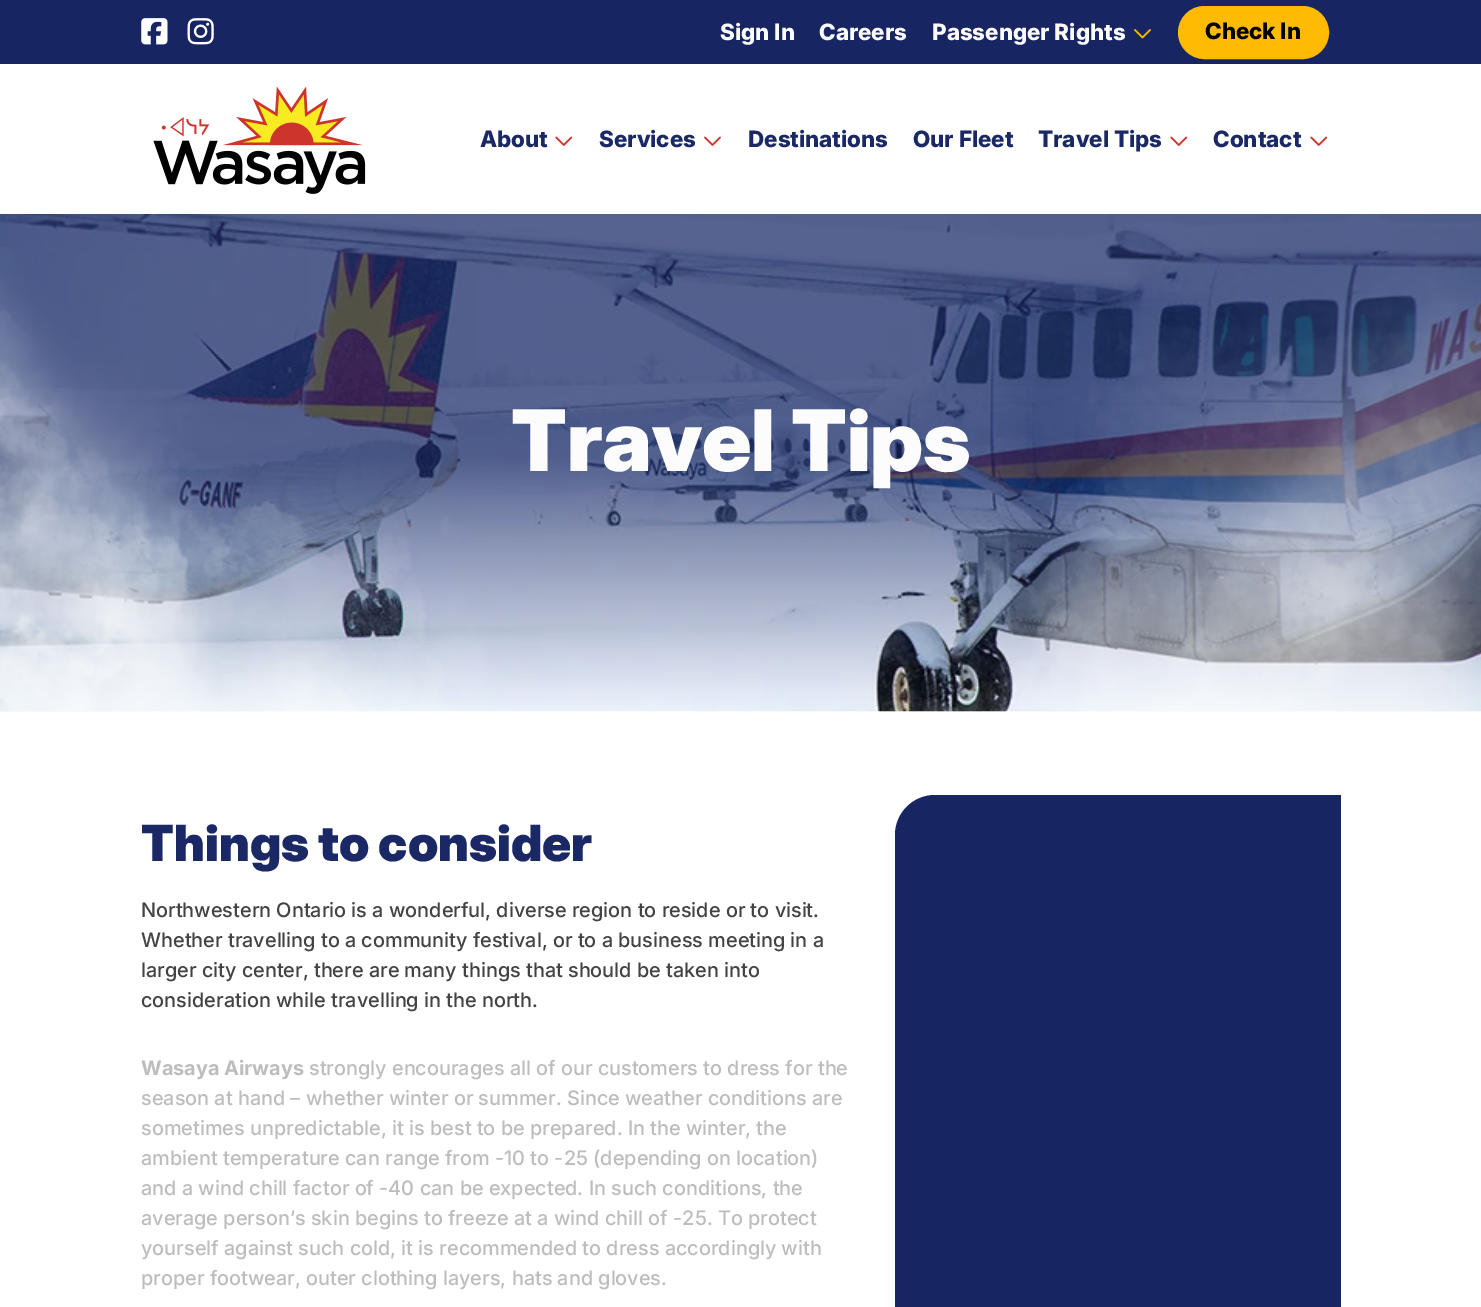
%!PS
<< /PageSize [1481 1307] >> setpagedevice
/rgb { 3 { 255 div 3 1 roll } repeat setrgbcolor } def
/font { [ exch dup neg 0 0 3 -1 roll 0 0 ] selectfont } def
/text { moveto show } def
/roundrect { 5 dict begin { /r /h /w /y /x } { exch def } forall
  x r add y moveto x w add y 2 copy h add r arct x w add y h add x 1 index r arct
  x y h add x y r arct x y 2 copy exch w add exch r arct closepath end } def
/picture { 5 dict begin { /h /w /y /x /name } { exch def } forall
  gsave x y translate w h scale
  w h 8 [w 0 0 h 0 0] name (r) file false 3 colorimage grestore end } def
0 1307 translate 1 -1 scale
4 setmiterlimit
255 255 255 rgb
0 0 1481 1307 rectfill
23 37 99 rgb
0 0 1481 64 rectfill
(img_01.rgb) 141 18 27 27 picture
(img_02.rgb) 187 18 27 27 picture
(img_03.rgb) 1134 29 17 10 picture
255 187 1 rgb
1179.5 7.5 148 50 25 roundrect gsave fill grestore
3 setlinewidth
stroke
(img_04.rgb) 153 86 213 108 picture
(img_05.rgb) 555 136 18 10 picture
(img_06.rgb) 704 136 17 10 picture
(img_05.rgb) 1170 136 18 10 picture
(img_05.rgb) 1310 136 18 10 picture
(img_07.rgb) 0 214 1481 498 picture
(img_08.rgb) 0 247 1481 464 picture
23 37 99 rgb
935 795 moveto 406 0 rlineto 0 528 rlineto -446 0 rlineto 0 -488 rlineto 0 -22 18 -40 40 -40 rcurveto closepath fill
/Inter-ExtraBold 22.5 font
252 252 253 rgb
(Sign In) 720 40 text
(Careers) 819 40 text
(Passenger Rights) 932 40 text
0 0 0 rgb
(Check In) 1205 39 text
26 40 101 rgb
(About) 480 147 text
(Services) 599 147 text
(Destinations) 748 147 text
(Our Fleet) 913 147 text
(Travel Tips) 1038 147 text
(Contact) 1213 147 text
/Inter-Black 85 font
252 252 253 rgb
(Travel Tips) 511 471 text
/Inter-Black 50 font
26 40 101 rgb
(Things to consider) 141 861 text
/Inter-Medium 20 font
67 67 67 rgb
(Northwestern Ontario is a wonderful, diverse region to reside or to visit.) 141 917 text
(Whether travelling to a community festival, or to a business meeting in a) 141 947 text
(larger city center, there are many things that should be taken into) 141 977 text
(consideration while travelling in the north.) 141 1007 text
/Inter-Bold 20 font
189 189 189 rgb
(Wasaya Airways) 141 1075 text
/Inter-Medium 20 font
(strongly encourages all of our customers to dress for the) 309 1075 text
(season at hand – whether winter or summer. Since weather conditions are) 141 1105 text
(sometimes unpredictable, it is best to be prepared. In the winter, the) 141 1135 text
(ambient temperature can range from -10 to -25 \(depending on location\)) 141 1165 text
(and a wind chill factor of -40 can be expected. In such conditions, the) 141 1195 text
(average person’s skin begins to freeze at a wind chill of -25. To protect) 141 1225 text
(yourself against such cold, it is recommended to dress accordingly with) 141 1255 text
(proper footwear, outer clothing layers, hats and gloves.) 141 1285 text
showpage
